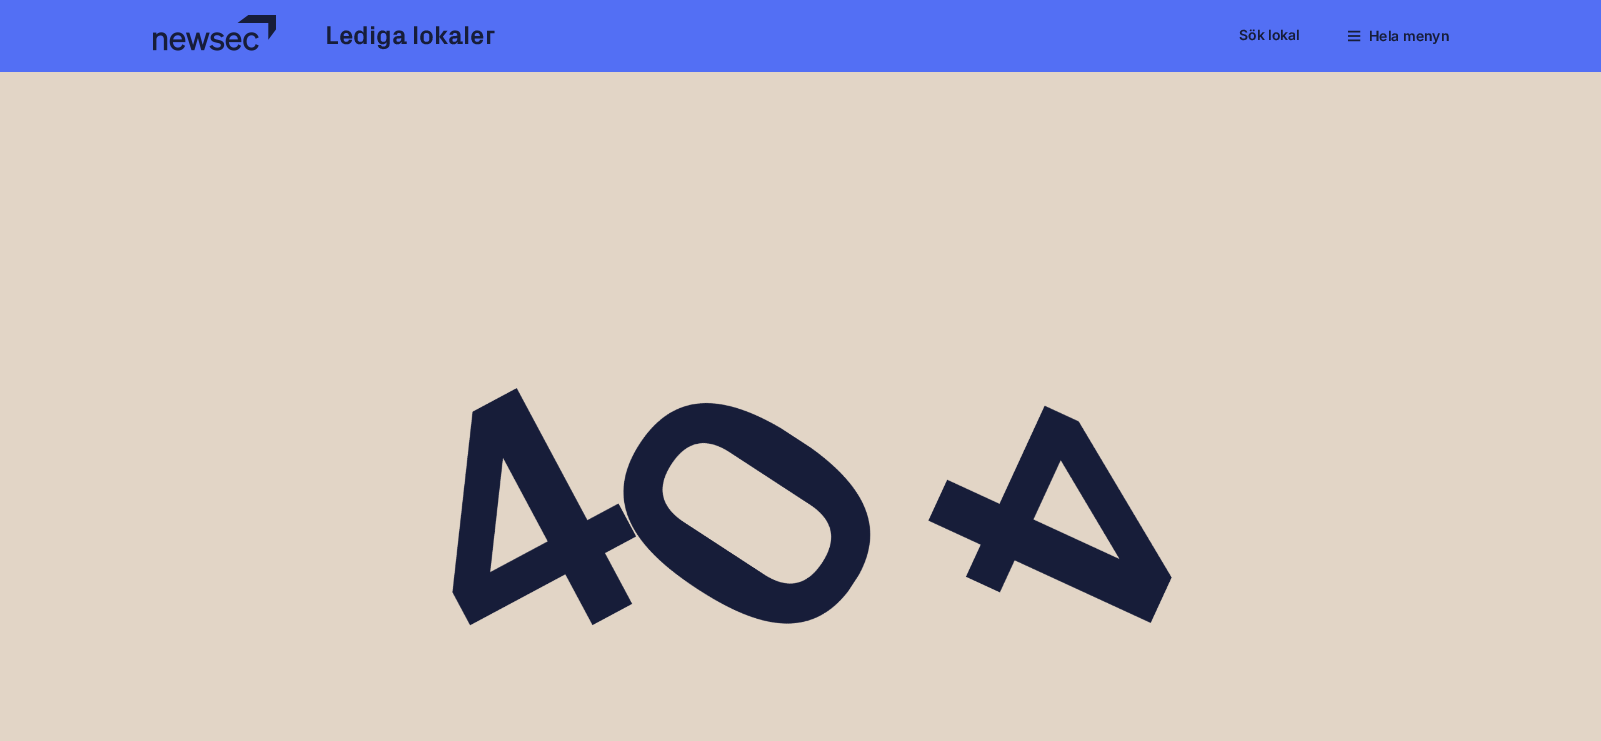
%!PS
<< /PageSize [1601 741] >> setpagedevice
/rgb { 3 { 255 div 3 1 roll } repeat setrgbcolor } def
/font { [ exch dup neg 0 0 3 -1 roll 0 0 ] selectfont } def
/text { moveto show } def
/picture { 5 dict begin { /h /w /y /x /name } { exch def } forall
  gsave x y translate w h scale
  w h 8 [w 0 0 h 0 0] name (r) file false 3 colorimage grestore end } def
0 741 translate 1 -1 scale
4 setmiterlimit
83 111 244 rgb
0 0 1601 741 rectfill
(img_01.rgb) 153 15 123 36 picture
(img_02.rgb) 1348 30 13 12 picture
226 213 198 rgb
0 72 1601 669 rectfill
(img_03.rgb) 452 388 720 238 picture
/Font-Bold 26 font
23 29 57 rgb
325 44 moveto -1 0 32 (Lediga lokaler) widthshow
/Inter-SemiBold 14 font
(Sök lokal) 1239 40 text
(Hela menyn) 1369 41 text
showpage
